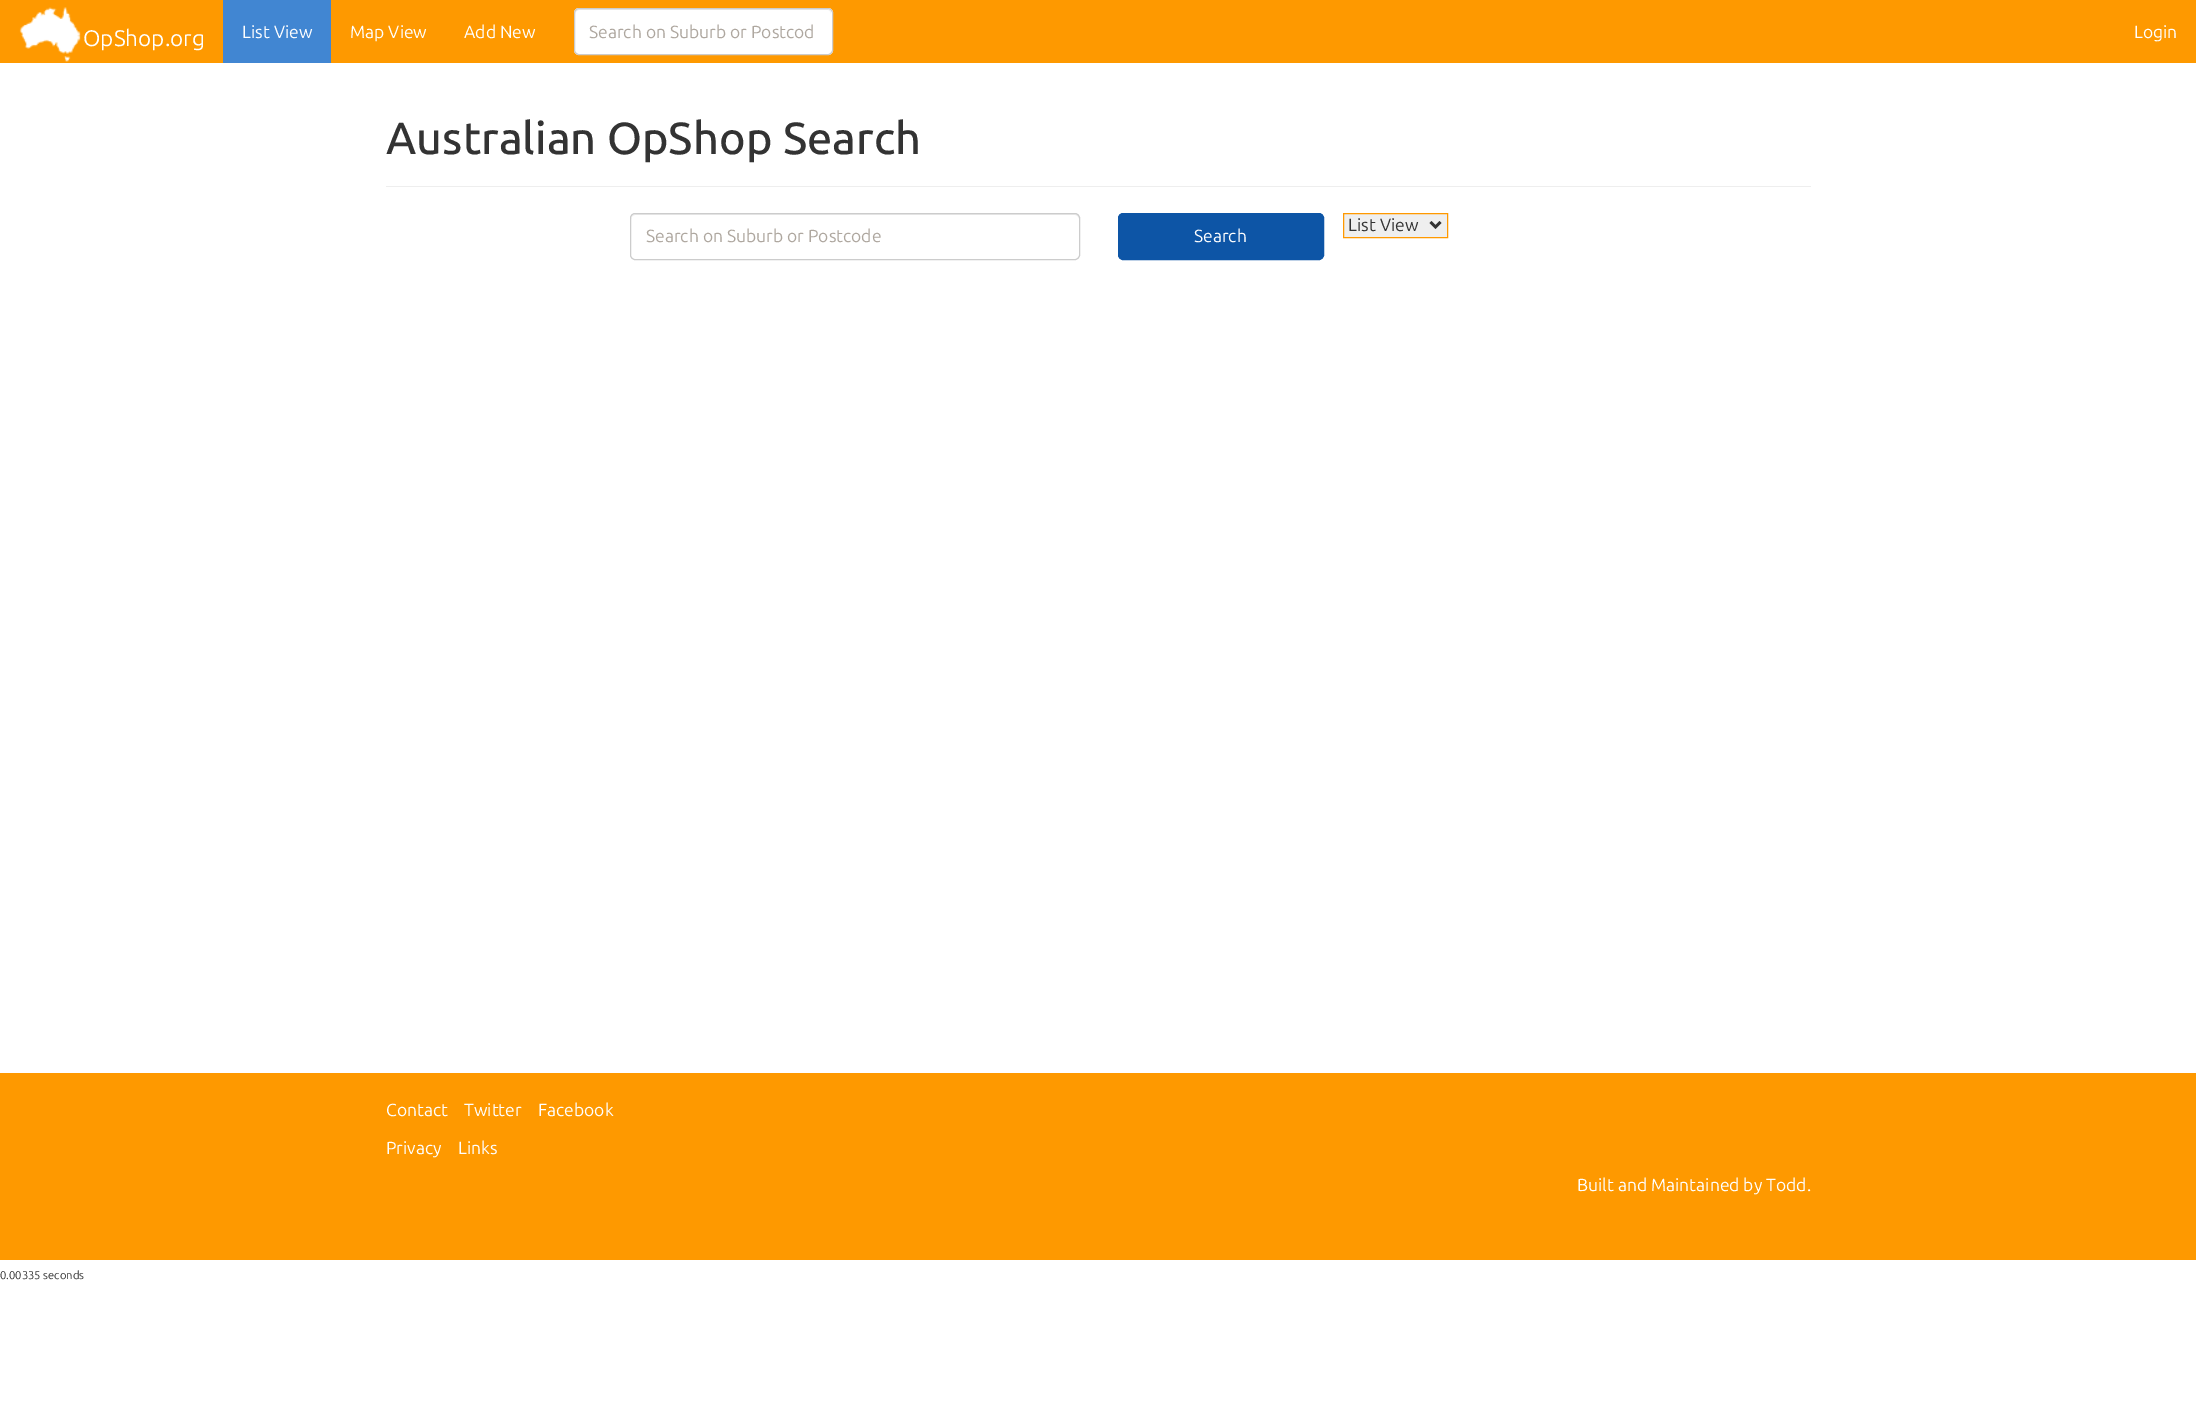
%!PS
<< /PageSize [2196 1416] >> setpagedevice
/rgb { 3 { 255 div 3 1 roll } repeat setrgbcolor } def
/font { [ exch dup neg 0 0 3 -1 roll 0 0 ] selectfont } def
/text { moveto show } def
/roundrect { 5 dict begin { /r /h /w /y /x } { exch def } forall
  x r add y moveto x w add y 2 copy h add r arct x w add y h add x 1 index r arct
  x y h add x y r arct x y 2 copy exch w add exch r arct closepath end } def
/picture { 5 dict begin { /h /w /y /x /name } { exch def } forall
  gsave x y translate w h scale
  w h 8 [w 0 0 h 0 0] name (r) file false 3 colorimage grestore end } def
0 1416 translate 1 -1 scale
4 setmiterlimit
255 255 255 rgb
0 0 2196 1416 rectfill
254 153 0 rgb
0 0 2196 63 rectfill
(img_01.rgb) 19 7 62 55 picture
65 134 210 rgb
223 0 108 63 rectfill
255 255 255 rgb
574 8 259 47 5 roundrect fill
236 236 236 rgb
579 10 moveto 249 0 rlineto 2 0 3 2 3 4 rcurveto 0 -1 rlineto 0 -2 -2 -4 -4 -4 rcurveto -248 0 rlineto -2 0 -4 2 -4 4 rcurveto 0 1 rlineto 0 -2 2 -4 4 -4 rcurveto closepath fill
204 204 204 rgb
574.5 8.5 258 46 4.5 roundrect stroke
238 238 238 rgb
386 186 1425 1 rectfill
239 239 239 rgb
1343.5 213.5 moveto 104 0 rlineto 0 24 rlineto -104 0 rlineto closepath gsave fill grestore
255 153 0 rgb
stroke
51 51 51 rgb
2.5 setlinewidth
1430.5 222 moveto 5 5 rlineto 5 -5 rlineto stroke
236 236 236 rgb
635 215 moveto 440 0 rlineto 2 0 4 2 4 4 rcurveto 0 -3 -1 -5 -4 -5 rcurveto -440 0 rlineto -2 1 rlineto -1 1 rlineto -1 3 rlineto 0 -2 2 -4 4 -4 rcurveto closepath fill
204 204 204 rgb
1 setlinewidth
630.5 213.5 449 46 4.5 roundrect stroke
13 85 166 rgb
1118.5 213.5 205 46 4.5 roundrect gsave fill grestore
stroke
254 153 0 rgb
0 1073 2196 187 rectfill
/Ubuntu-Regular 22.5 font
255 255 255 rgb
(OpShop.org) 83 46 text
/Ubuntu-Regular 17.5 font
(List View) 242 38 text
(Map View) 350 38 text
(Add New) 464 38 text
174 167 159 rgb
(Search on Suburb or Postcod) 589 38 text
255 255 255 rgb
(Login) 2134 38 text
/Ubuntu-Medium 45 font
51 51 51 rgb
(Australian OpShop Search) 386 154 text
/Ubuntu-Regular 17.5 font
(List View) 1348 231 text
174 167 159 rgb
(Search on Suburb or Postcode) 646 242 text
255 255 255 rgb
(Search) 1194 242 text
(Contact) 386 1116 text
(Twitter) 464 1116 text
(Facebook) 538 1116 text
(Privacy) 386 1154 text
(Links) 458 1154 text
(Built and Maintained by Todd.) 1577 1191 text
/Ubuntu-Regular 11.25 font
51 51 51 rgb
(0.00335 seconds) 0 1279 text
showpage
